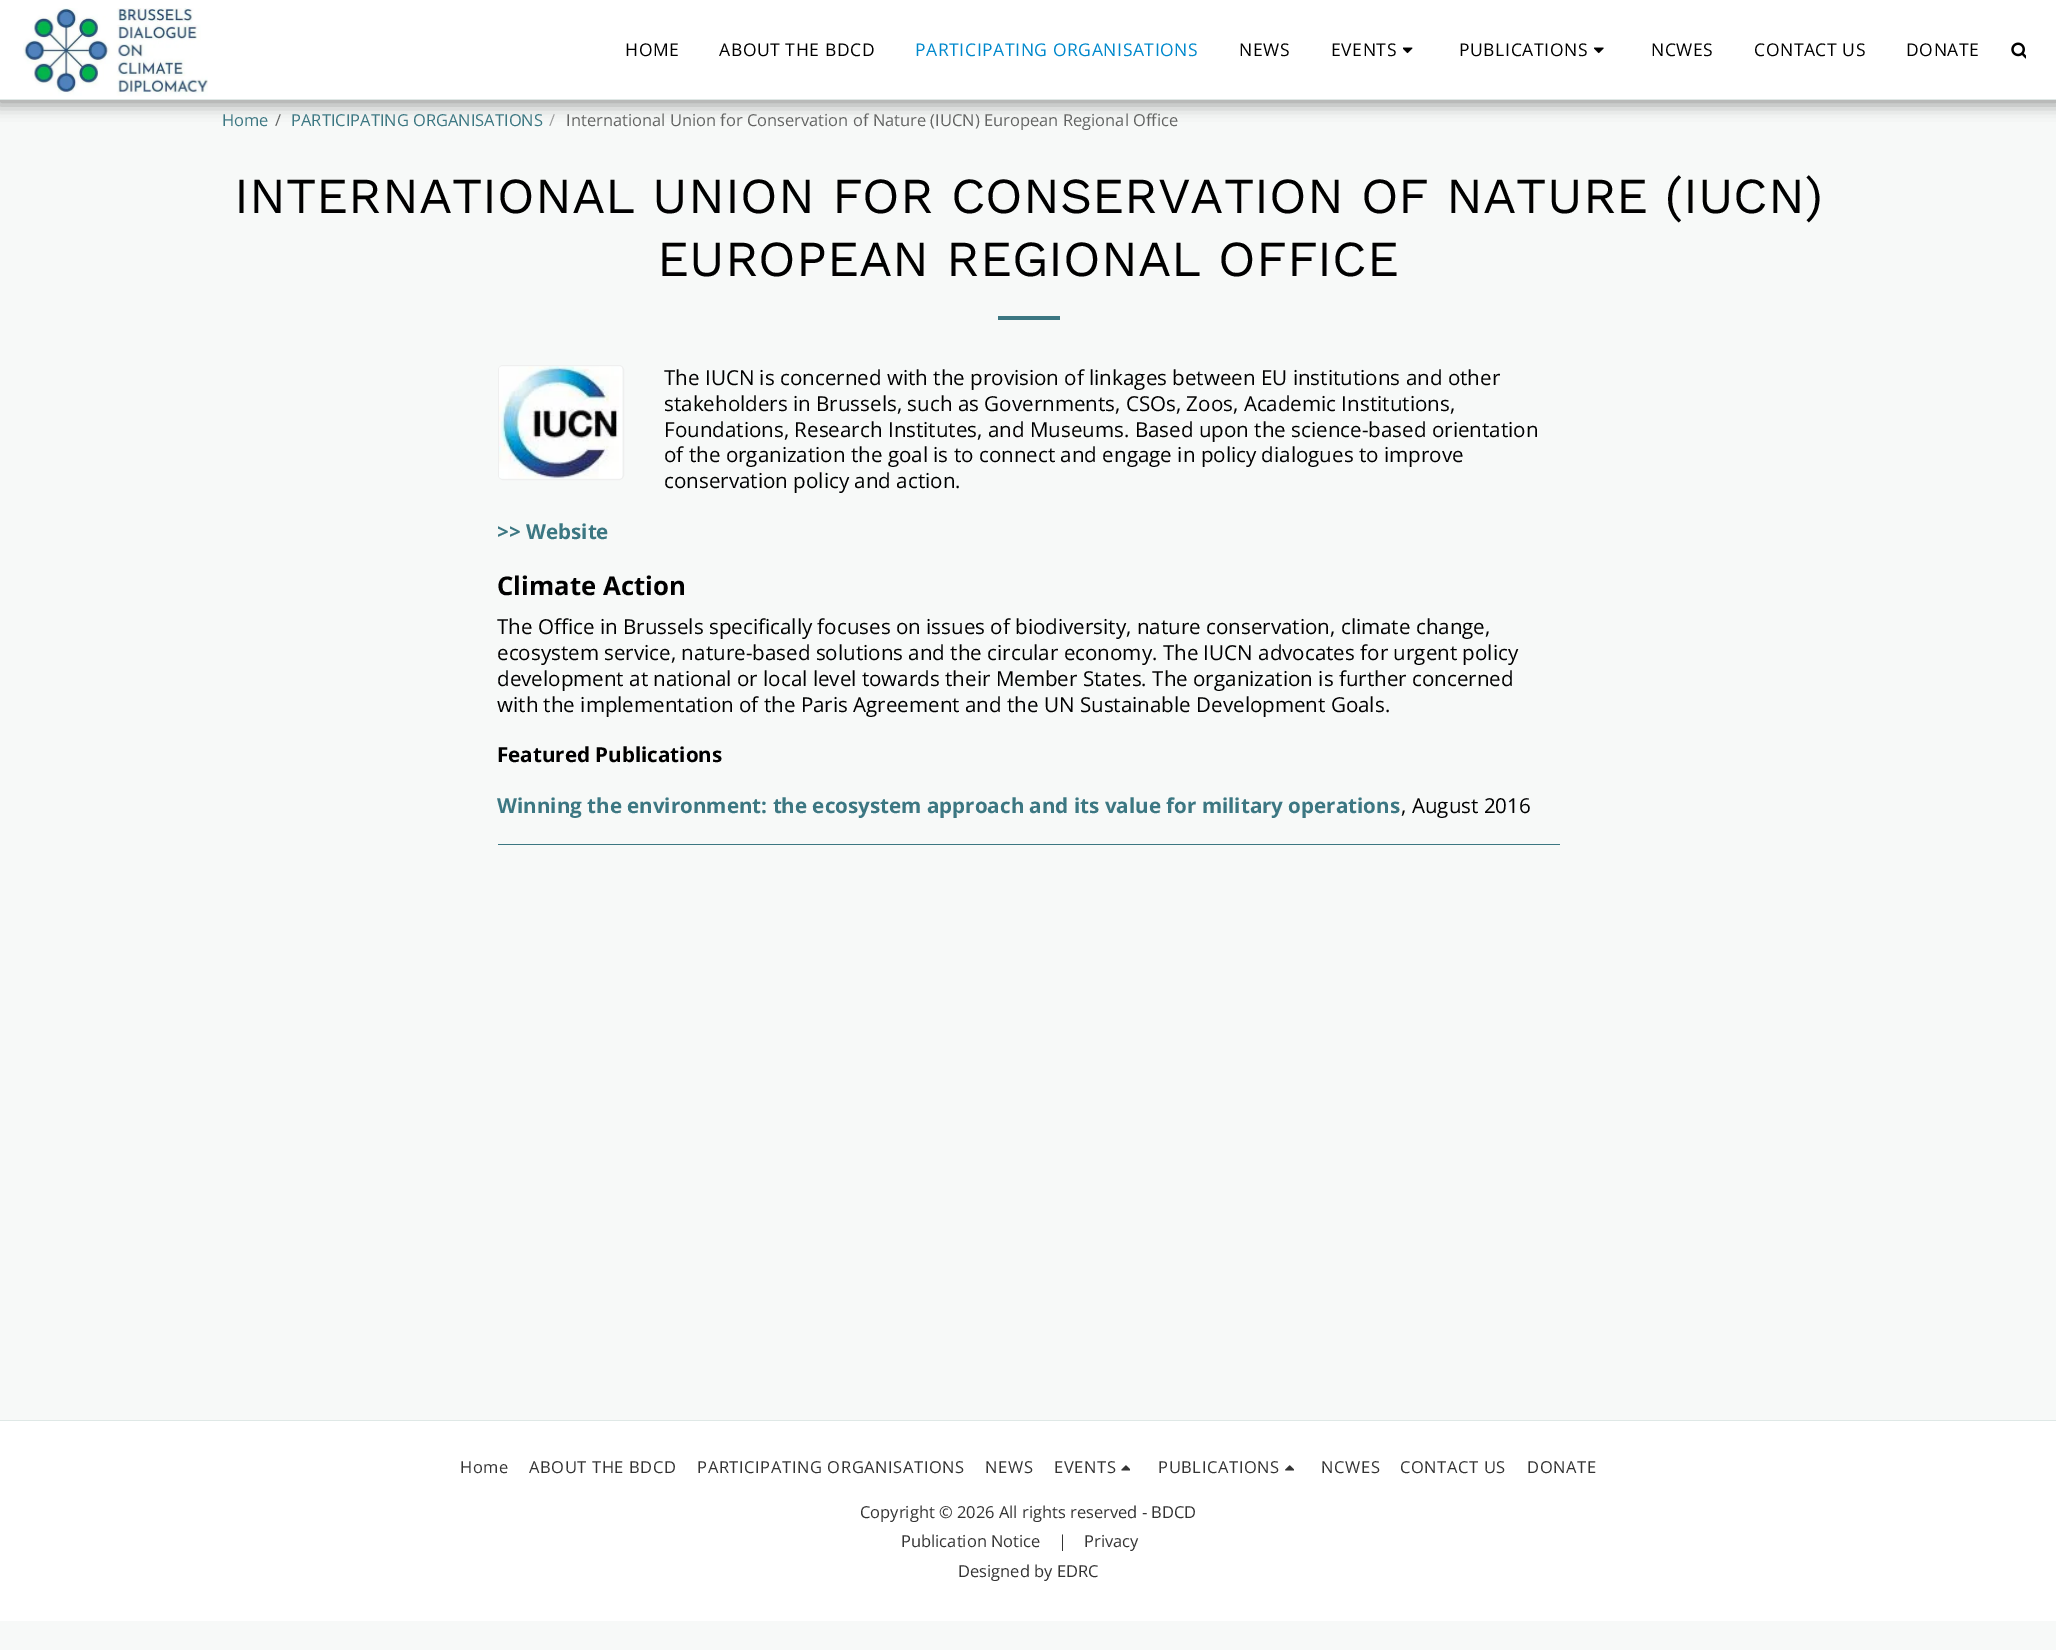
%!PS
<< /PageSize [2056 1650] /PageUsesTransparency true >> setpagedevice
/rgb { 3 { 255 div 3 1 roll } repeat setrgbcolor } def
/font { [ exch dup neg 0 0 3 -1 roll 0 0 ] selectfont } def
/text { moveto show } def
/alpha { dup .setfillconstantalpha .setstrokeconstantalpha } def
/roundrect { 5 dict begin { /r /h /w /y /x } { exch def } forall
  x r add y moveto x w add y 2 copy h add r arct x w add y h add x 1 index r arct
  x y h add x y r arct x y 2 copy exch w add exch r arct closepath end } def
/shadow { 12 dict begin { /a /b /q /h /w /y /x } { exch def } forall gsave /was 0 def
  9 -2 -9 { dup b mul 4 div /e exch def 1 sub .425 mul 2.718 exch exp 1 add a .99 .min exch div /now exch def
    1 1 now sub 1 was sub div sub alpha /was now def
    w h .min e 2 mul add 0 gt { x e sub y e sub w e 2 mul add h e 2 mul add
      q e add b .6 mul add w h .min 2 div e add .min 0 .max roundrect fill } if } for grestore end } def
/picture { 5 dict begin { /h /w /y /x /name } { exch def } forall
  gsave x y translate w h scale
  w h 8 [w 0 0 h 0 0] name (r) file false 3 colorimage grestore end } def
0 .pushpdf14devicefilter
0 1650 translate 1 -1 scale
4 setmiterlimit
247 249 248 rgb
0 0 2056 1650 rectfill
0 0 0 rgb
-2 0 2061 105 0 7.5 0.35 shadow
255 255 255 rgb
0 0 2056 99 rectfill
223 232 230 rgb
0 99 2056 1 rectfill
(img_01.rgb) 23 8 185 88 picture
(img_02.rgb) 1403 47 10 7 picture
(img_03.rgb) 1594 47 10 7 picture
(img_04.rgb) 2011 42 15 17 picture
60 119 130 rgb
998 316 62 4 rectfill
239 239 239 rgb
498.5 365.5 125 114 4.5 roundrect stroke
(img_05.rgb) 499 366 123 113 picture
60 119 130 rgb
498 844 1062 1 rectfill
223 232 230 rgb
0 1420 2056 1 rectfill
255 255 255 rgb
0 1421 2056 200 rectfill
(img_06.rgb) 1121 1465 9 6 picture
(img_07.rgb) 1285 1465 9 6 picture
/OpenSans-Regular 17.5 font
0 0 0 rgb
625 56 moveto 0.6 0 (HOME) ashow
719 56 moveto 0.6 0 (ABOUT THE BDCD) ashow
0 136 204 rgb
915 56 moveto 0.6 0 (PARTICIPATING ORGANISATIONS) ashow
0 0 0 rgb
1239 56 moveto 0.6 0 (NEWS) ashow
1331 56 moveto 0.6 0 (EVENTS) ashow
1459 56 moveto 0.6 0 (PUBLICATIONS) ashow
1651 56 moveto 0.6 0 (NCWES) ashow
1754 56 moveto 0.6 0 (CONTACT US) ashow
1906 56 moveto 0.6 0 (DONATE) ashow
/OpenSans-Regular 16.5 font
60 119 130 rgb
(Home) 222 126 text
99 100 99 rgb
(/) 275 126 text
60 119 130 rgb
(PARTICIPATING ORGANISATIONS) 291 126 text
158 159 159 rgb
(/) 549 126 text
99 100 99 rgb
(International Union for Conservation of Nature \(IUCN\) European Regional Office) 566 126 text
/WorkSans-Regular 50.35 font
0 0 0 rgb
(INTERNATIONAL UNION FOR CONSERVATION OF NATURE \(IUCN\)) 234 213 text
(EUROPEAN REGIONAL OFFICE) 657 276 text
/OpenSans-Regular 20.6 font
(The IUCN is concerned with the provision of linkages between EU institutions and other) 664 385 text
(stakeholders in Brussels, such as Governments, CSOs, Zoos, Academic Institutions,) 664 411 text
(Foundations, Research Institutes, and Museums. Based upon the science-based orientation) 664 437 text
(of the organization the goal is to connect and engage in policy dialogues to improve) 664 462 text
(conservation policy and action.) 664 488 text
/OpenSans-Bold 20.6 font
60 119 130 rgb
(>> Website) 497 539 text
/OpenSans-Bold 25.75 font
0 0 0 rgb
(Climate Action) 497 595 text
/OpenSans-Regular 20.6 font
(The Office in Brussels specifically focuses on issues of biodiversity, nature conservation, climate change,) 497 634 text
(ecosystem service, nature-based solutions and the circular economy. The IUCN advocates for urgent policy) 497 660 text
(development at national or local level towards their Member States. The organization is further concerned) 497 686 text
(with the implementation of the Paris Agreement and the UN Sustainable Development Goals.) 497 712 text
/OpenSans-Bold 20.6 font
(Featured Publications) 497 762 text
60 119 130 rgb
(Winning the environment: the ecosystem approach and its value for military operations) 497 813 text
/OpenSans-Regular 20.6 font
0 0 0 rgb
(, August 2016) 1401 813 text
/OpenSans-Regular 16.5 font
51 51 51 rgb
460 1473 moveto 0.6 0 (Home) ashow
529 1473 moveto 0.6 0 (ABOUT THE BDCD) ashow
697 1473 moveto 0.6 0 (PARTICIPATING ORGANISATIONS) ashow
985 1473 moveto 0.6 0 (NEWS) ashow
1054 1473 moveto 0.6 0 (EVENTS) ashow
1158 1473 moveto 0.6 0 (PUBLICATIONS) ashow
1321 1473 moveto 0.6 0 (NCWES) ashow
1400 1473 moveto 0.6 0 (CONTACT US) ashow
1527 1473 moveto 0.6 0 (DONATE) ashow
(Copyright © 2026 All rights reserved - BDCD) 860 1518 text
(Publication Notice) 901 1547 text
(|) 1058 1547 text
(Privacy) 1084 1547 text
(Designed by EDRC) 958 1577 text
.poppdf14devicefilter showpage
